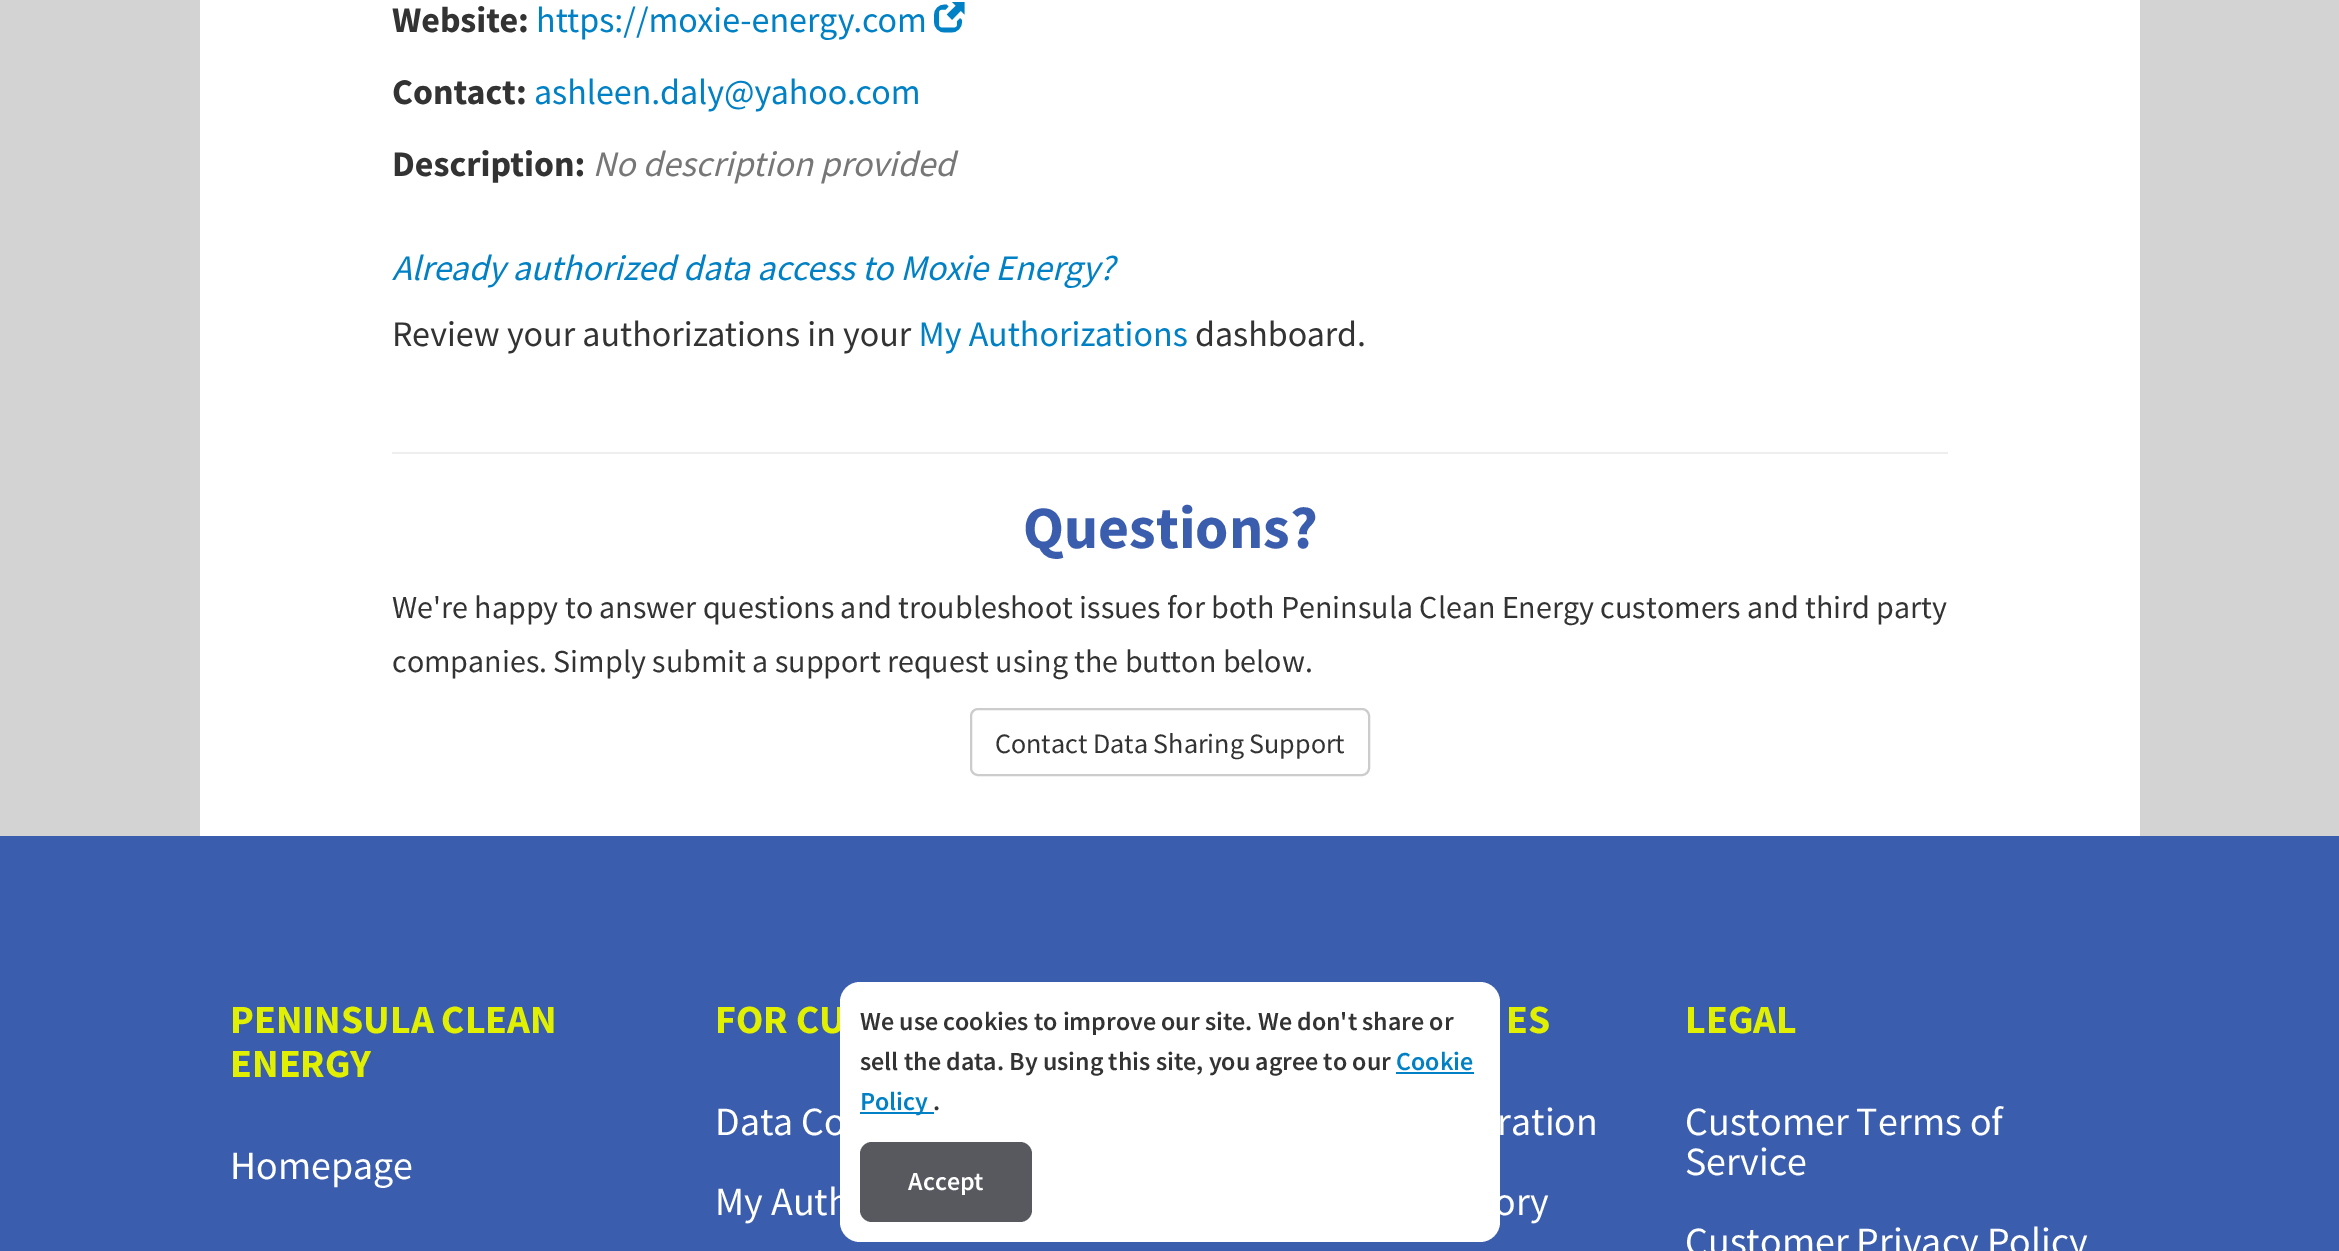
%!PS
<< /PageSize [2339 1251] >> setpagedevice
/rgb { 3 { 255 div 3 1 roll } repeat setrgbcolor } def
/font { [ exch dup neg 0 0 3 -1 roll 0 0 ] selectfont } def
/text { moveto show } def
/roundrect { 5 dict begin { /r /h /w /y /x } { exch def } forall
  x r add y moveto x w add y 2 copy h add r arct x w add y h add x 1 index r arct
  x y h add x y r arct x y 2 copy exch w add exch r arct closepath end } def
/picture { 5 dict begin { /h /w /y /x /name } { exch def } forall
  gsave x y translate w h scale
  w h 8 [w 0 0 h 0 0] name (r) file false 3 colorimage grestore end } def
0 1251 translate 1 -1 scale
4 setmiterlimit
211 211 211 rgb
0 0 2339 1251 rectfill
255 255 255 rgb
200 0 1940 836 rectfill
(img_01.rgb) 392 2 972 352 picture
238 238 238 rgb
392 452 1556 2 rectfill
204 204 204 rgb
2 setlinewidth
971 709 398 66 7 roundrect stroke
58 93 174 rgb
0 836 2339 415 rectfill
/SourceSansPro-Bold 60 font
(Questions?) 1023 548 text
/SourceSansPro-Regular 32 font
51 51 51 rgb
(We're happy to answer questions and troubleshoot issues for both Peninsula Clean Energy customers and third party) 392 618 text
(companies. Simply submit a support request using the button below.) 392 672 text
/SourceSansPro-Regular 28 font
(Contact Data Sharing Support) 995 753 text
/SourceSansPro-Bold 40 font
224 240 0 rgb
(PENINSULA CLEAN) 230 1033 text
(ENERGY) 230 1077 text
/SourceSansPro-Regular 40 font
255 255 255 rgb
(Homepage) 230 1179 text
/SourceSansPro-Bold 40 font
224 240 0 rgb
(FOR CU) 715 1033 text
/SourceSansPro-Regular 40 font
255 255 255 rgb
(Data Co) 715 1135 text
(My Auth) 715 1215 text
/SourceSansPro-Bold 40 font
224 240 0 rgb
(ES) 1506 1033 text
/SourceSansPro-Regular 40 font
255 255 255 rgb
(ration) 1497 1135 text
(ory) 1494 1215 text
/SourceSansPro-Bold 40 font
224 240 0 rgb
(LEGAL) 1685 1033 text
/SourceSansPro-Regular 40 font
255 255 255 rgb
(Customer Terms of) 1685 1135 text
(Service) 1685 1175 text
(Customer Privacy Policy) 1685 1255 text
840 982 660 260 20 roundrect fill
/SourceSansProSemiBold-SemiBold 26 font
51 51 51 rgb
(We use cookies to improve our site. We don't share or) 860 1030 text
(sell the data. By using this site, you agree to our) 860 1070 text
0 128 197 rgb
(Cookie) 1396 1070 text
1396 1072 78 2 rectfill
860 1112 74 2 rectfill
(Policy) 860 1110 text
51 51 51 rgb
(.) 933 1110 text
87 89 95 rgb
860 1142 172 80 12 roundrect fill
255 255 255 rgb
(Accept) 908 1190 text
showpage
